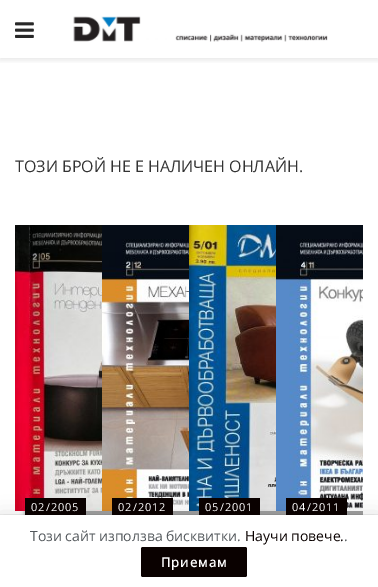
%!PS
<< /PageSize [378 587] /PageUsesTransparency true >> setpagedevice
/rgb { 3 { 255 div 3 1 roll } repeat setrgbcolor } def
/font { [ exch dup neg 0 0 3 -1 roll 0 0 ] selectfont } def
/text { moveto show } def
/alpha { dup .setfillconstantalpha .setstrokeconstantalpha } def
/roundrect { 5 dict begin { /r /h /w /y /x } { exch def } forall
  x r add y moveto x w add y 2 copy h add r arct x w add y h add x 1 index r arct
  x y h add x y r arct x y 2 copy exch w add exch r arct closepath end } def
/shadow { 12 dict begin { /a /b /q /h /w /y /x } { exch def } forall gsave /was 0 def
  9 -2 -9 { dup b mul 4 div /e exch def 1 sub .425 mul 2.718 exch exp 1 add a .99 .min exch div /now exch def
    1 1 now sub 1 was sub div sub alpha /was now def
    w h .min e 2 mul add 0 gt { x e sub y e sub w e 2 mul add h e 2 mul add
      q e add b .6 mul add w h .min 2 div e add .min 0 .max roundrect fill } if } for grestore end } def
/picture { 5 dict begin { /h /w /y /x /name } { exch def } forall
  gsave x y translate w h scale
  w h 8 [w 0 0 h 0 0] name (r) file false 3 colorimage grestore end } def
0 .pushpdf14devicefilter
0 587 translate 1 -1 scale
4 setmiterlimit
255 255 255 rgb
0 0 378 587 rectfill
gsave
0 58 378 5 rectclip
0 0 0 rgb
0 2 378 58 0 3 0.1 shadow
grestore
(img_01.rgb) 15 22 19 16 picture
(img_02.rgb) 73 16 255 26 picture
158 158 158 rgb
25 235 235 286 0 2.5 1 shadow
(img_03.rgb) 15 225 87 286 picture
10 1 0 rgb
25 498 61 17 rectfill
158 158 158 rgb
112 235 235 286 0 2.5 1 shadow
(img_04.rgb) 102 225 87 286 picture
10 1 0 rgb
112 498 61 17 rectfill
gsave
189 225 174 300 rectclip
158 158 158 rgb
199 235 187 286 0 2.5 1 shadow
grestore
(img_05.rgb) 189 225 87 286 picture
199 498 61 17 rectfill
gsave
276 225 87 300 rectclip
158 158 158 rgb
286 235 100 286 0 2.5 1 shadow
grestore
(img_06.rgb) 276 225 87 286 picture
286 498 61 17 rectfill
0 0 0 rgb
0 517 378 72 0 10 0.15 shadow
0 515 378 72 0 0.5 0.2 shadow
255 255 255 rgb
0 515 378 72 rectfill
10 1 0 rgb
141 547 106 30 2 roundrect fill
/OpenSans-Regular 16 font
51 51 51 rgb
(ТОЗИ БРОЙ НЕ Е НАЛИЧЕН ОНЛАЙН.) 15 172 text
/OpenSans-Regular 11 font
255 255 255 rgb
31 511 moveto 1 0 (02/2005) ashow
118 511 moveto 1 0 (02/2012) ashow
205 511 moveto 1 0 (05/2001) ashow
292 511 moveto 1 0 (04/2011) ashow
/OpenSans-Regular 14 font
83 88 92 rgb
(Този сайт използва бисквитки.) 30 541 text
10 1 0 rgb
(Научи повече.) 245 541 text
83 88 92 rgb
(.) 344 541 text
/OpenSans-Bold 13 font
255 255 255 rgb
161 567 moveto 1 0 (Приемам) ashow
.poppdf14devicefilter showpage
